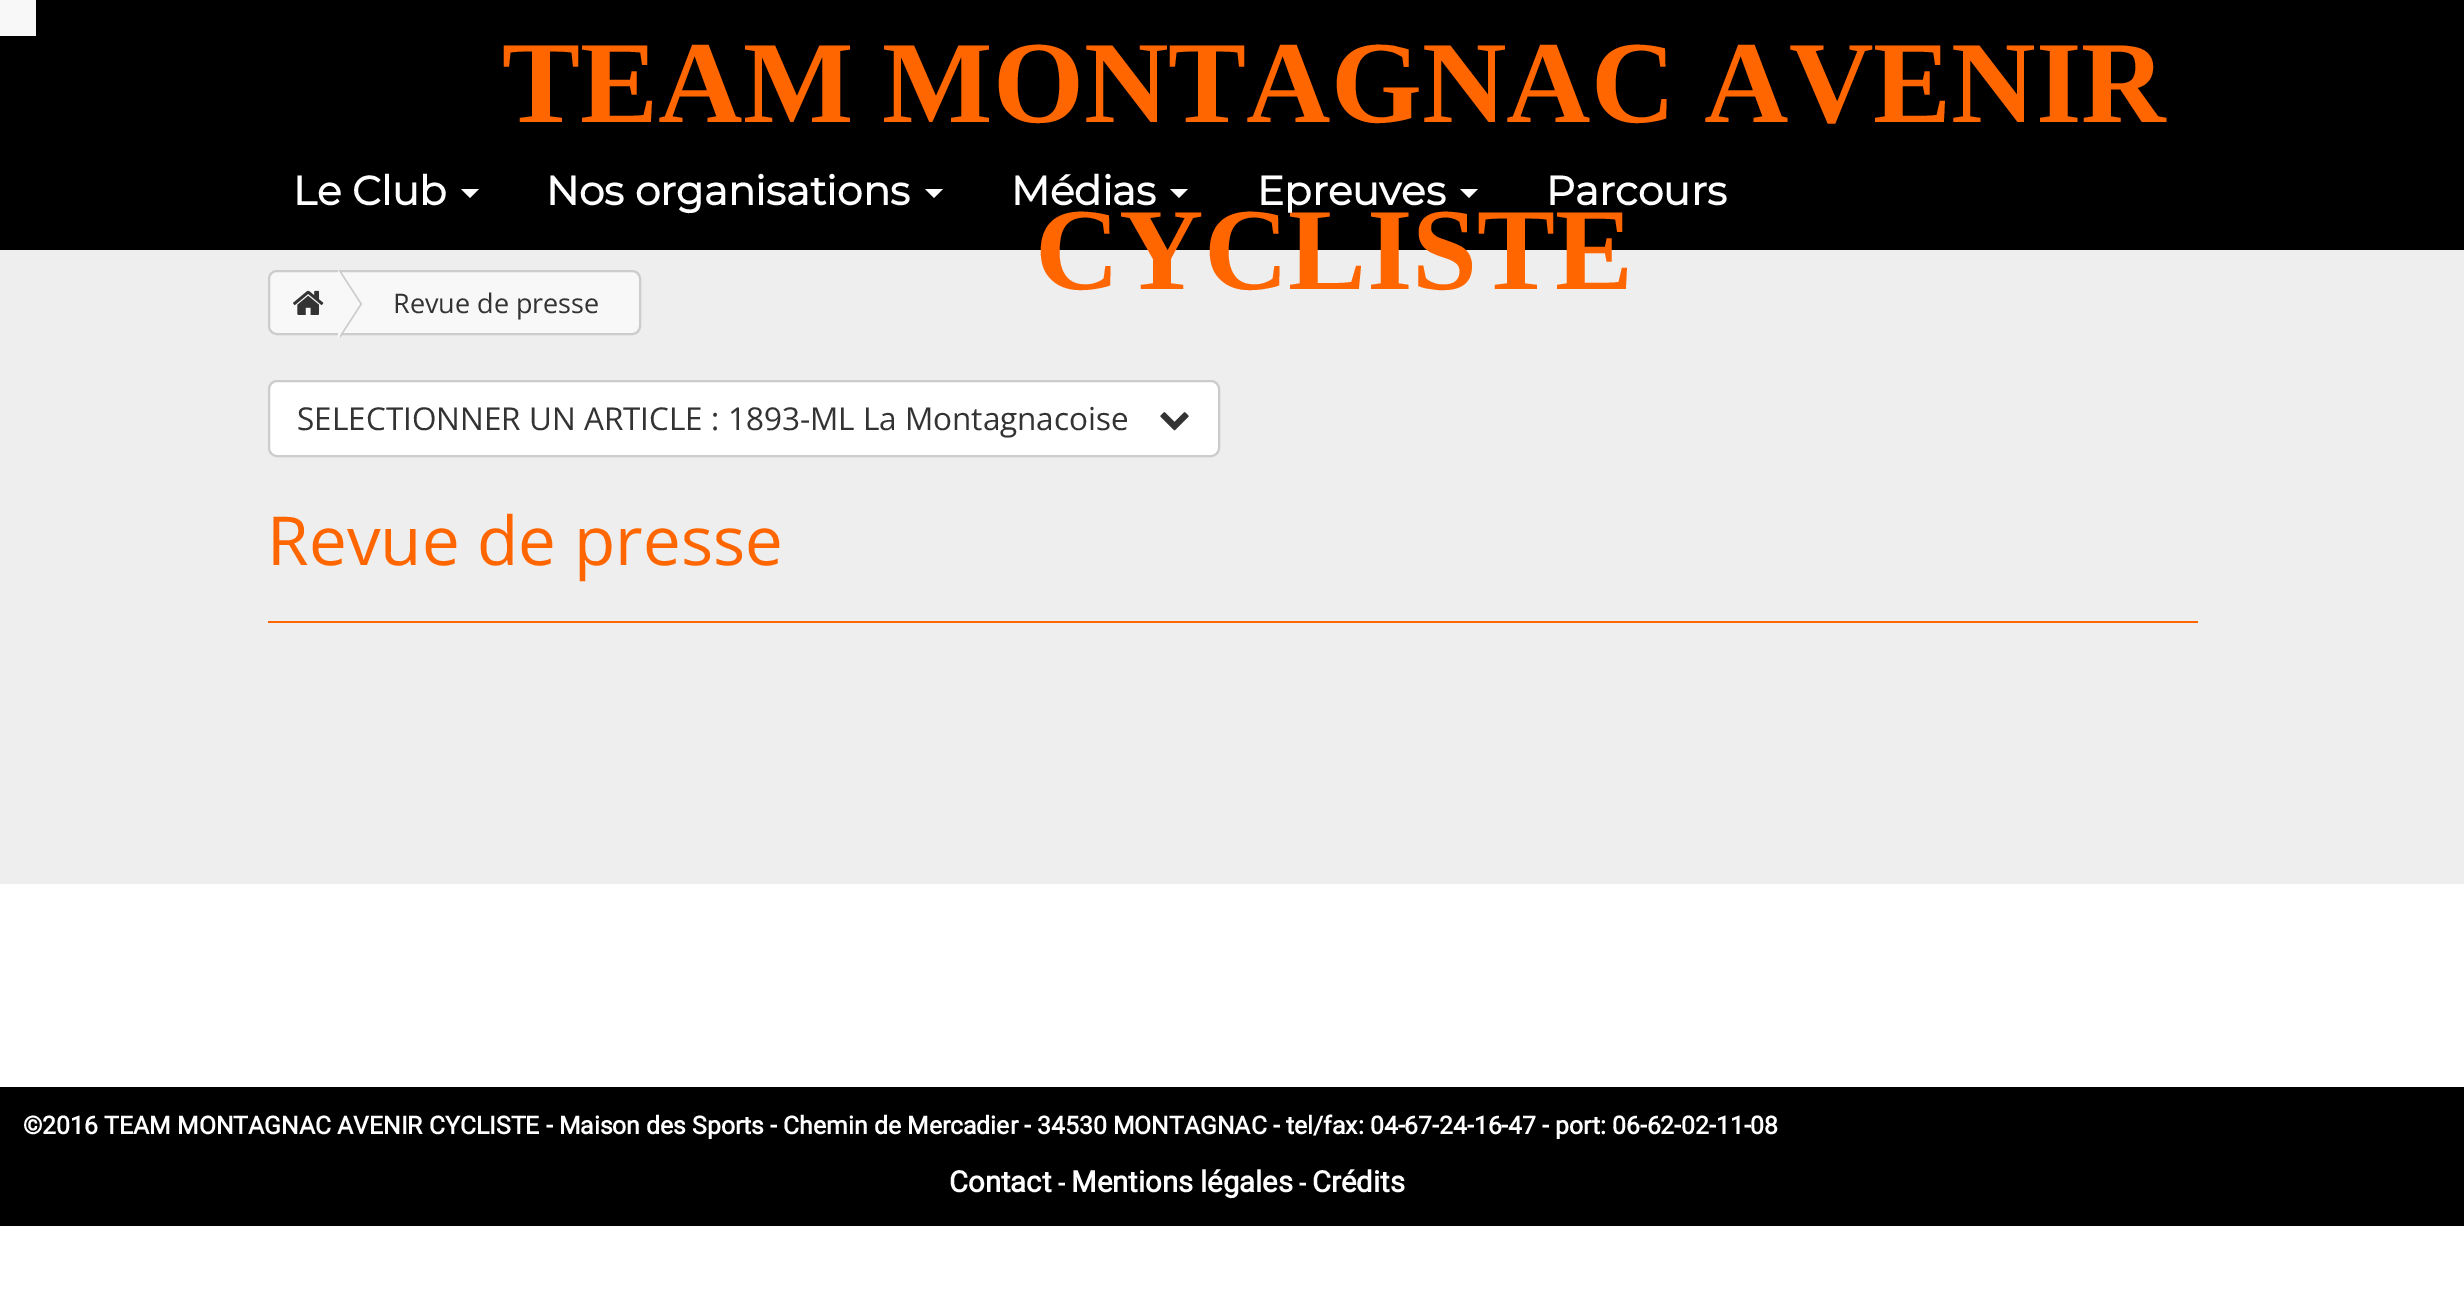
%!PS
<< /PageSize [2464 1303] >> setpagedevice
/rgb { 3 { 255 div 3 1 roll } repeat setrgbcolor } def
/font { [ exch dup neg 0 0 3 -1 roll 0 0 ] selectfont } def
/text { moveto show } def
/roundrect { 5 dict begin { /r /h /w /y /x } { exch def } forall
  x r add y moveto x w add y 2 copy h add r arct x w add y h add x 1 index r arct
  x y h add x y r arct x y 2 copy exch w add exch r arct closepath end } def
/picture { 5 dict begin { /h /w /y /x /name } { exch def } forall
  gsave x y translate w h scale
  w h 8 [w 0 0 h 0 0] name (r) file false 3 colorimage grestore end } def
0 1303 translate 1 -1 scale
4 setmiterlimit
255 255 255 rgb
0 0 2464 1303 rectfill
0 0 0 rgb
0 0 2464 250 rectfill
248 248 248 rgb
0 0 36 36 rectfill
255 255 255 rgb
461 189 moveto 18 0 rlineto -9 9 rlineto closepath fill
925 189 moveto 18 0 rlineto -9 9 rlineto closepath fill
1170 189 moveto 18 0 rlineto -9 9 rlineto closepath fill
1460 189 moveto 18 0 rlineto -9 9 rlineto closepath fill
238 238 238 rgb
0 250 2464 634 rectfill
248 248 248 rgb
277 271 moveto 62 0 rlineto 0 63 rlineto -62 0 rlineto -4.5 0 -8 -3.5 -8 -8 rcurveto 0 -47 rlineto 0 -4.5 3.5 -8 8 -8 rcurveto closepath gsave fill grestore
204 204 204 rgb
2 setlinewidth
stroke
248 248 248 rgb
339 271 moveto 293 0 rlineto 4.5 0 8 3.5 8 8 rcurveto 0 47 rlineto 0 4.5 -3.5 8 -8 8 rcurveto -293 0 rlineto closepath gsave fill grestore
204 204 204 rgb
stroke
340 338 moveto 0 -68 rlineto 22 34 rlineto closepath fill
248 248 248 rgb
338 338 moveto 0 -68 rlineto 22 34 rlineto closepath fill
(img_01.rgb) 293 290 31 25 picture
255 255 255 rgb
269 381 950 75 8 roundrect gsave fill grestore
204 204 204 rgb
stroke
(img_02.rgb) 1160 412 29 19 picture
255 102 0 rgb
268 621 1930 2 rectfill
0 0 0 rgb
0 1087 2464 139 rectfill
/LiberationSerif-Bold 117 font
255 102 0 rgb
(TEAM MONTAGNAC AVENIR) 502 122 text
(CYCLISTE) 1035 289 text
/Montserrat-Bold 40.5 font
255 255 255 rgb
(Le Club) 293 205 text
(Nos organisations) 546 205 text
(Médias) 1011 205 text
(Epreuves) 1257 205 text
(Parcours) 1546 205 text
/OpenSans-Regular 27 font
51 51 51 rgb
(Revue de presse) 393 313 text
/OpenSans-Regular 31.5 font
(SELECTIONNER UN ARTICLE : 1893-ML La Montagnacoise) 297 430 text
/OpenSans-Regular 67.5 font
255 102 0 rgb
(Revue de presse) 267 565 text
/Roboto-Bold 24.75 font
255 255 255 rgb
(©2016 TEAM MONTAGNAC AVENIR CYCLISTE - Maison des Sports - Chemin de Mercadier - 34530 MONTAGNAC - tel/fax: 04-67-24-16-47 - port: 06-62-02-11-08) 23 1134 text
/Roboto-Bold 29.25 font
(Contact) 949 1192 text
/Roboto-Bold 24.75 font
(-) 1058 1192 text
/Roboto-Bold 29.25 font
(Mentions légales) 1071 1192 text
/Roboto-Bold 24.75 font
(-) 1299 1192 text
/Roboto-Bold 29.25 font
(Crédits) 1312 1192 text
showpage
